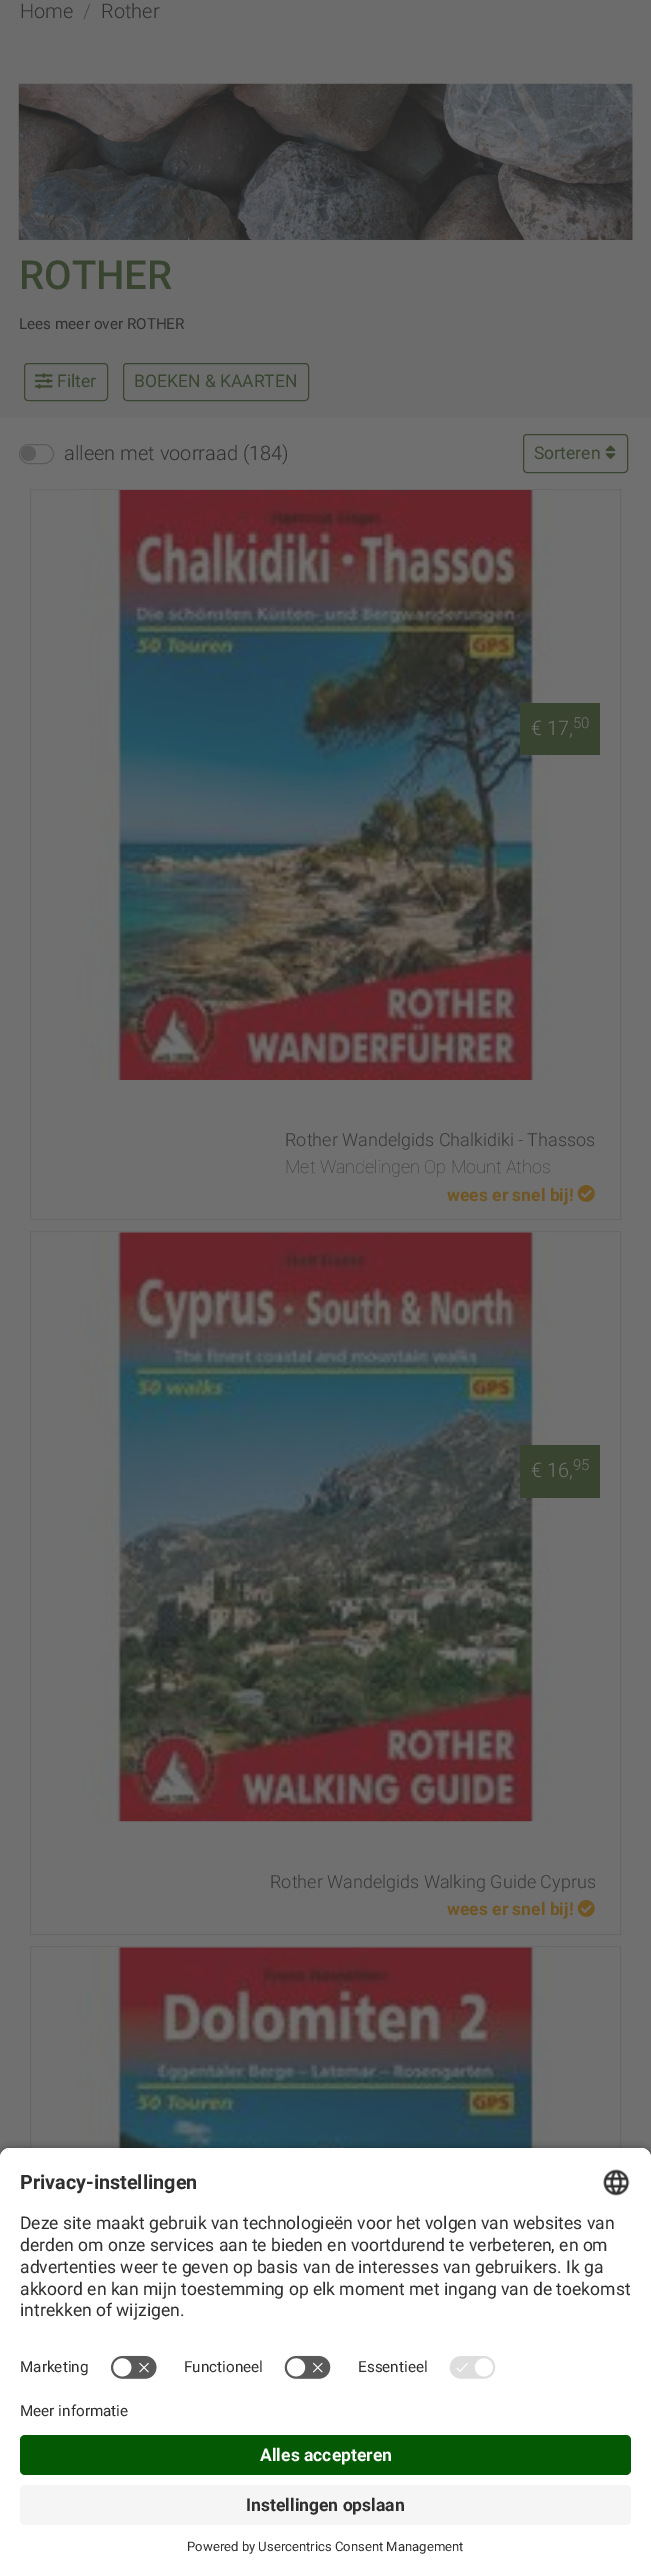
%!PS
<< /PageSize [651 2574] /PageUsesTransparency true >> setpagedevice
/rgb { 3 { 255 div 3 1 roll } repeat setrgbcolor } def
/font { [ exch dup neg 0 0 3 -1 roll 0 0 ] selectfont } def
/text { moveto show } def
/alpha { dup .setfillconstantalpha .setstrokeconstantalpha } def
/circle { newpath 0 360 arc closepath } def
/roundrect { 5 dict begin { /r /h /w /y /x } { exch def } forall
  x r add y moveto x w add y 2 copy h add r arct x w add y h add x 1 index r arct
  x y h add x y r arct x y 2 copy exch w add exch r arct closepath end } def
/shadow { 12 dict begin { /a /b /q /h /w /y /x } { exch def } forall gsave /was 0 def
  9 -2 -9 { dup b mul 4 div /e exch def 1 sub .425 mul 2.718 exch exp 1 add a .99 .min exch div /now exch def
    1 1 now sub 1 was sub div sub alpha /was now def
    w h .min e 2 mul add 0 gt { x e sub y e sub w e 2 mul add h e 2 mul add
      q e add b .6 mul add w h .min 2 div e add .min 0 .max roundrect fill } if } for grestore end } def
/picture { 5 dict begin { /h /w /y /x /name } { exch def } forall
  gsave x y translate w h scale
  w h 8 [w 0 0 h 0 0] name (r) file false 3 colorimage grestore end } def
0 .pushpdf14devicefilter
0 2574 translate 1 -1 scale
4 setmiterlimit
108 108 108 rgb
0 0 651 2574 rectfill
(img_01.rgb) 18 83 615 157 picture
56 68 47 rgb
24.5 363.5 83 37 3.5 roundrect stroke
(img_02.rgb) 35 373 18 16 picture
123.5 363.5 185 37 3.5 roundrect stroke
112 112 112 rgb
0 418 651 1740 rectfill
90 90 90 rgb
19.5 444.5 34 19 9.5 roundrect stroke
28.5 453.5 7.5 circle fill
56 68 47 rgb
523.5 434.5 104 38 3.5 roundrect stroke
(img_03.rgb) 605 445 11 14 picture
103 103 103 rgb
30.5 489.5 590 730 rectstroke
(img_04.rgb) 77 490 474 590 picture
56 68 47 rgb
520 703 80 52 rectfill
(img_05.rgb) 577 1185 18 17 picture
103 103 103 rgb
30.5 1231.5 590 703 rectstroke
(img_06.rgb) 77 1232 475 590 picture
56 68 47 rgb
520 1445 80 53 rectfill
(img_05.rgb) 577 1900 18 17 picture
103 103 103 rgb
30.5 1946.5 590 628 rectstroke
(img_07.rgb) 78 1947 473 201 picture
0 0 0 rgb
0 2151 651 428 10 4.5 0.8 shadow
255 255 255 rgb
10 2148 moveto 631 0 rlineto 5.5 0 10 4.5 10 10 rcurveto 0 245 rlineto -651 0 rlineto 0 -245 rlineto 0 -5.5 4.5 -10 10 -10 rcurveto closepath fill
10 2148 moveto 631 0 rlineto 5.5 0 10 4.5 10 10 rcurveto 0 190 rlineto -651 0 rlineto 0 -190 rlineto 0 -5.5 4.5 -10 10 -10 rcurveto closepath fill
(img_08.rgb) 603 2169 27 27 picture
(img_09.rgb) 110 2355 48 25 picture
(img_10.rgb) 284 2355 47 25 picture
(img_11.rgb) 449 2356 47 23 picture
0 2403 651 171 rectfill
4 89 5 rgb
20 2435 611 40 5 roundrect fill
245 245 245 rgb
20 2485 611 40 5 roundrect fill
/Roboto-Light 20 font
47 47 47 rgb
(Home) 20 18 text
71 71 71 rgb
(/) 83 18 text
47 47 47 rgb
(Rother) 101 18 text
/Roboto-Medium 40 font
56 68 47 rgb
(ROTHER) 19 289 text
/Roboto-Regular 15.25 font
47 47 47 rgb
(Lees meer over ROTHER) 19 329 text
/Roboto-Regular 17.5 font
56 68 47 rgb
(Filter) 57 387 text
(BOEKEN & KAARTEN) 134 387 text
/Roboto-Light 20 font
47 47 47 rgb
(alleen met voorraad \(184\)) 64 460 text
/Roboto-Regular 17.5 font
56 68 47 rgb
(Sorteren) 534 459 text
/Roboto-Light 20 font
112 112 112 rgb
(€ 17,) 531 735 text
/Roboto-Light 15 font
(50) 573 728 text
/Roboto-Light 18 font
55 55 55 rgb
(Rother Wandelgids Chalkidiki - Thassos) 285 1146 text
/Roboto-Thin 18 font
(Met Wandelingen Op Mount Athos) 285 1173 text
/Roboto-Bold 17.5 font
112 85 36 rgb
(wees er snel bij!) 447 1201 text
/Roboto-Light 20 font
112 112 112 rgb
(€ 16,) 531 1477 text
/Roboto-Light 15 font
(95) 573 1470 text
/Roboto-Light 18 font
55 55 55 rgb
(Rother Wandelgids Walking Guide Cyprus) 270 1888 text
/Roboto-Bold 17.5 font
112 85 36 rgb
(wees er snel bij!) 447 1915 text
/Roboto-Bold 19.75 font
47 47 47 rgb
(Privacy-instellingen) 20 2189 text
/Roboto-Regular 17.5 font
(Deze site maakt gebruik van technologieën voor het volgen van websites van) 20 2229 text
(derden om onze services aan te bieden en voortdurend te verbeteren, en om) 20 2251 text
(advertenties weer te geven op basis van de interesses van gebruikers. Ik ga) 20 2273 text
(akkoord en kan mijn toestemming op elk moment met ingang van de toekomst) 20 2295 text
(intrekken of wijzigen.) 20 2316 text
/Roboto-Regular 15.25 font
(Marketing) 20 2372 text
(Functioneel) 184 2372 text
(Essentieel) 358 2372 text
(Meer informatie) 20 2416 text
/Roboto-Bold 17.5 font
250 250 250 rgb
(Alles accepteren) 260 2461 text
47 47 47 rgb
(Instellingen opslaan) 246 2511 text
/Roboto-Regular 13.1 font
(Powered by Usercentrics Consent Management) 187 2551 text
.poppdf14devicefilter showpage
